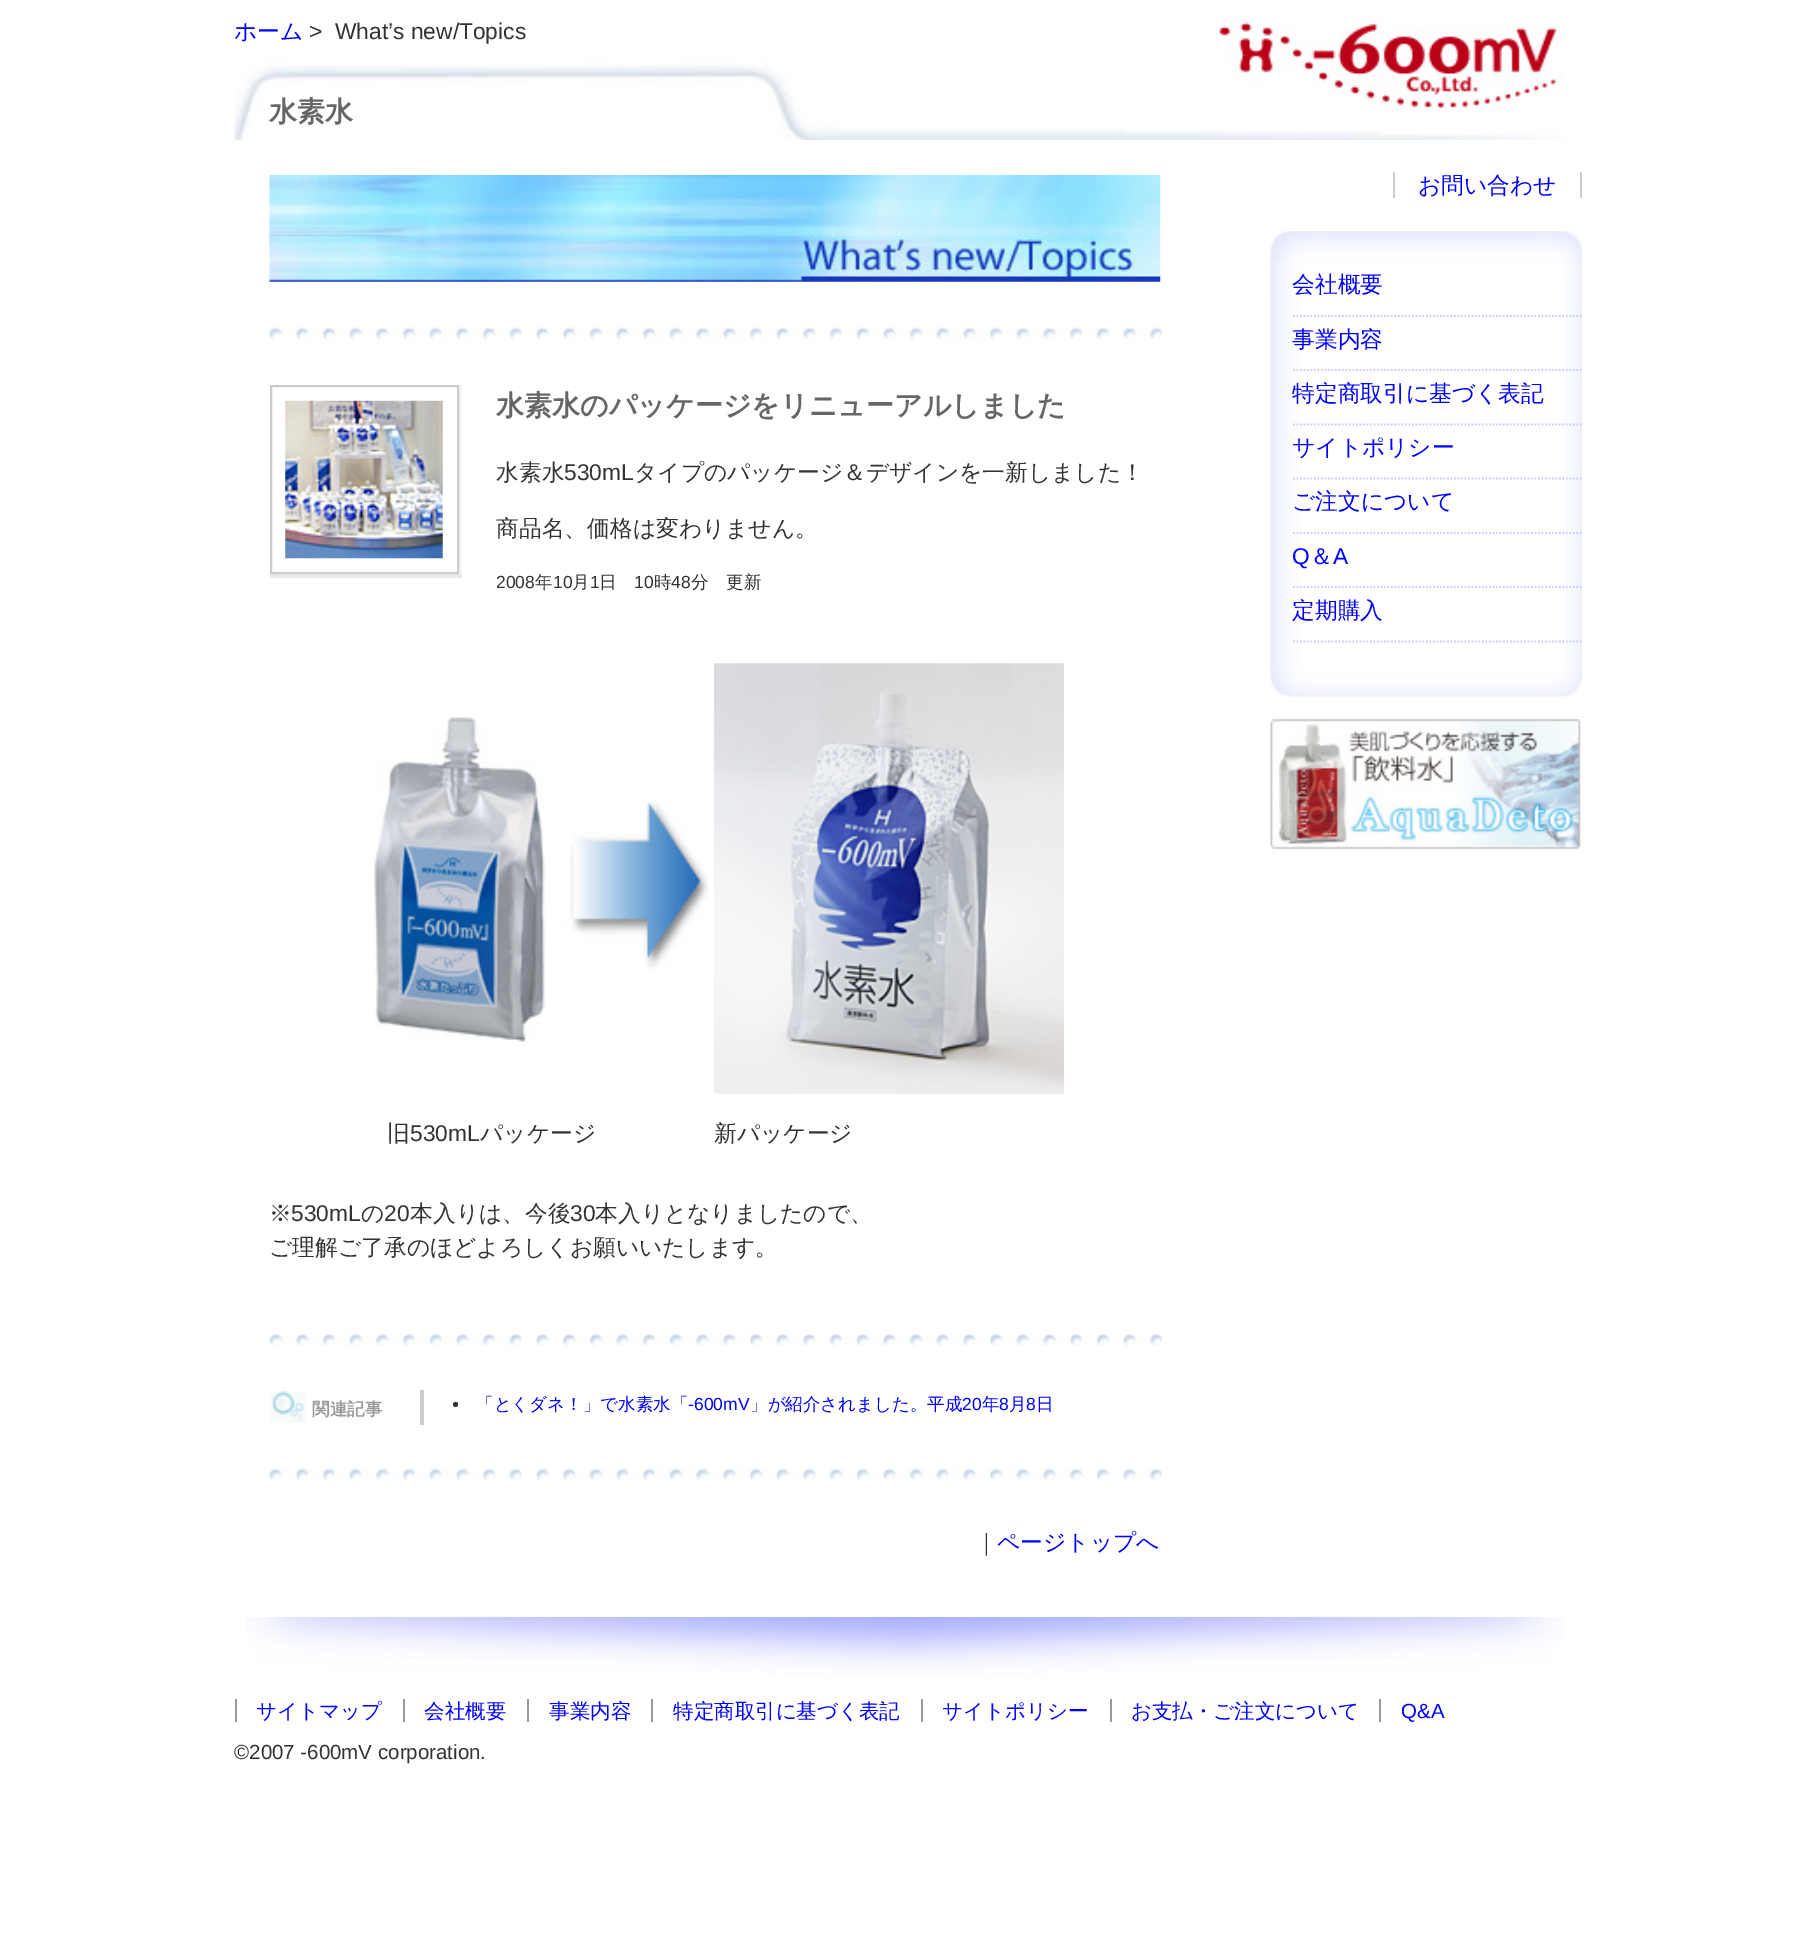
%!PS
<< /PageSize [1814 1959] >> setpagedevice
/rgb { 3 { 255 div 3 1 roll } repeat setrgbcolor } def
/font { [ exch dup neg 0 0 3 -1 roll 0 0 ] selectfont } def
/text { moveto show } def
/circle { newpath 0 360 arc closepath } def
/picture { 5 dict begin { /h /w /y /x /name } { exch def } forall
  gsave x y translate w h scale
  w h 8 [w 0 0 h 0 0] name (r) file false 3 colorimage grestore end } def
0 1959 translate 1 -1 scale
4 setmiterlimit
255 255 255 rgb
0 0 1814 1959 rectfill
(img_01.rgb) 234 14 1330 126 picture
(img_02.rgb) 269 175 892 107 picture
(img_03.rgb) 269 327 893 13 picture
245 245 245 rgb
459 385 3 189 rectfill
233 233 233 rgb
270 574 192 4 rectfill
204 204 204 rgb
2 setlinewidth
271 386 187 187 rectstroke
(img_04.rgb) 285 400 158 159 picture
(img_05.rgb) 374 717 335 325 picture
(img_06.rgb) 714 663 350 431 picture
(img_07.rgb) 269 1333 893 13 picture
(img_08.rgb) 269 1391 37 32 picture
420 1390 4 35 rectfill
51 51 51 rgb
455.5 1404.5 2.5 circle fill
(img_03.rgb) 269 1468 893 13 picture
204 204 204 rgb
1580 172 2 26 rectfill
1393 172 2 26 rectfill
(img_10.rgb) 1270 262 312 403 picture
(img_09.rgb) 1270 231 312 32 picture
204 204 255 rgb
1.8 setlinewidth
[1.75 1.75] 0 setdash
1293 316 moveto 289 0 rlineto stroke
1293 370 moveto 289 0 rlineto stroke
1293 424.5 moveto 289 0 rlineto stroke
1293 478.5 moveto 289 0 rlineto stroke
1293 533 moveto 289 0 rlineto stroke
1293 587 moveto 289 0 rlineto stroke
1293 641.5 moveto 289 0 rlineto stroke
(img_11.rgb) 1270 665 312 32 picture
(img_12.rgb) 1270 719 311 130 picture
(img_13.rgb) 246 1617 1318 57 picture
153 153 153 rgb
235 1699 2 23 rectfill
403 1699 2 23 rectfill
527 1699 2 23 rectfill
651 1699 2 23 rectfill
921 1699 2 23 rectfill
1110 1699 2 23 rectfill
1379 1699 2 23 rectfill
/WenQuanYiZenHei-Medium 22.75 font
0 0 255 rgb
(ホーム) 234 39 text
/LiberationSans-Regular 22.75 font
51 51 51 rgb
(>) 309 39 text
(What’s new/Topics) 335 39 text
/WenQuanYiZenHei-Bold 28 font
102 102 102 rgb
(水素水) 269 121 text
(水素水のパッケージをリニューアルしました) 496 415 text
/WenQuanYiZenHei-Medium 22.75 font
51 51 51 rgb
(水素水) 496 480 text
/LiberationSans-Regular 22.75 font
(530mL) 564 480 text
/WenQuanYiZenHei-Medium 22.75 font
(タイプのパッケージ＆デザインを一新しました！) 634 480 text
(商品名、価格は変わりません。) 496 536 text
/LiberationSans-Regular 17.5 font
(2008) 496 588 text
/WenQuanYiZenHei-Medium 17.5 font
(年) 535 588 text
/LiberationSans-Regular 17.5 font
(10) 553 588 text
/WenQuanYiZenHei-Medium 17.5 font
(月) 572 588 text
/LiberationSans-Regular 17.5 font
(1) 590 588 text
/WenQuanYiZenHei-Medium 17.5 font
(日) 599 588 text
/LiberationSans-Regular 17.5 font
(10) 634 588 text
/WenQuanYiZenHei-Medium 17.5 font
(時) 654 588 text
/LiberationSans-Regular 17.5 font
(48) 671 588 text
/WenQuanYiZenHei-Medium 17.5 font
(分　更新) 691 588 text
/WenQuanYiZenHei-Medium 22.75 font
(旧) 387 1141 text
/LiberationSans-Regular 22.75 font
(530mL) 410 1141 text
/WenQuanYiZenHei-Medium 22.75 font
(パッケージ) 480 1141 text
(新パッケージ) 714 1141 text
(※) 269 1221 text
/LiberationSans-Regular 22.75 font
(530mL) 291 1221 text
/WenQuanYiZenHei-Medium 22.75 font
(の) 361 1221 text
/LiberationSans-Regular 22.75 font
(20) 384 1221 text
/WenQuanYiZenHei-Medium 22.75 font
(本入りは、今後) 410 1221 text
/LiberationSans-Regular 22.75 font
(30) 570 1221 text
/WenQuanYiZenHei-Medium 22.75 font
(本入りとなりましたので、) 595 1221 text
(ご理解ご了承のほどよろしくお願いいたします。) 269 1255 text
/WenQuanYiZenHei-Bold 17.5 font
153 153 153 rgb
(関連記事) 312 1415 text
/WenQuanYiZenHei-Medium 17.5 font
0 0 255 rgb
(「とくダネ！」で水素水「) 476 1410 text
/LiberationSans-Regular 17.5 font
(-600mV) 688 1410 text
/WenQuanYiZenHei-Medium 17.5 font
(」が紹介されました。平成) 750 1410 text
/LiberationSans-Regular 17.5 font
(20) 962 1410 text
/WenQuanYiZenHei-Medium 17.5 font
(年) 982 1410 text
/LiberationSans-Regular 17.5 font
(8) 999 1410 text
/WenQuanYiZenHei-Medium 17.5 font
(月) 1009 1410 text
/LiberationSans-Regular 17.5 font
(8) 1026 1410 text
/WenQuanYiZenHei-Medium 17.5 font
(日) 1036 1410 text
/WenQuanYiZenHei-Medium 22.75 font
51 51 51 rgb
(｜) 975 1550 text
0 0 255 rgb
(ページトップへ) 997 1550 text
(お問い合わせ) 1418 193 text
(会社概要) 1292 292 text
(事業内容) 1292 347 text
(特定商取引に基づく表記) 1292 401 text
(サイトポリシー) 1292 455 text
(ご注文について) 1292 509 text
/LiberationSans-Regular 22.75 font
(Q) 1292 564 text
/WenQuanYiZenHei-Medium 22.75 font
(＆) 1310 564 text
/LiberationSans-Regular 22.75 font
(A) 1333 564 text
/WenQuanYiZenHei-Medium 22.75 font
(定期購入) 1292 618 text
/WenQuanYiZenHei-Medium 20.5 font
(サイトマップ) 256 1718 text
(会社概要) 424 1718 text
(事業内容) 549 1718 text
(特定商取引に基づく表記) 673 1718 text
(サイトポリシー) 942 1718 text
(お支払・ご注文について) 1131 1718 text
/LiberationSans-Regular 20.5 font
(Q&A) 1401 1718 text
51 51 51 rgb
(©2007 -600mV corporation.) 234 1759 text
showpage
